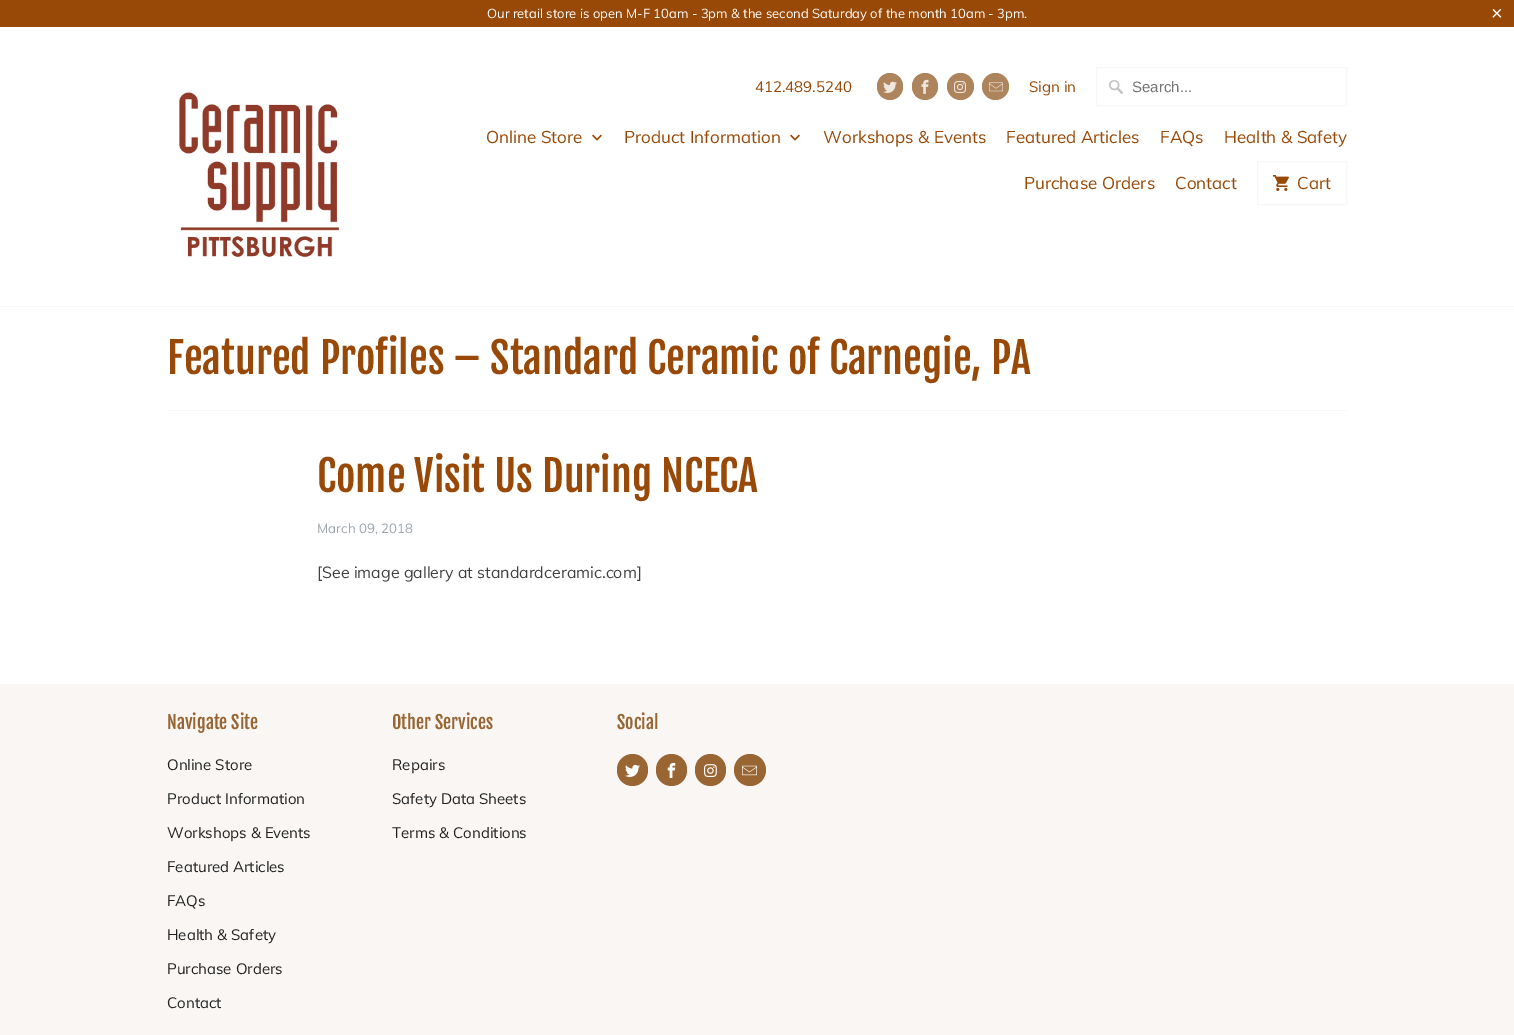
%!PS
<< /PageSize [1514 1035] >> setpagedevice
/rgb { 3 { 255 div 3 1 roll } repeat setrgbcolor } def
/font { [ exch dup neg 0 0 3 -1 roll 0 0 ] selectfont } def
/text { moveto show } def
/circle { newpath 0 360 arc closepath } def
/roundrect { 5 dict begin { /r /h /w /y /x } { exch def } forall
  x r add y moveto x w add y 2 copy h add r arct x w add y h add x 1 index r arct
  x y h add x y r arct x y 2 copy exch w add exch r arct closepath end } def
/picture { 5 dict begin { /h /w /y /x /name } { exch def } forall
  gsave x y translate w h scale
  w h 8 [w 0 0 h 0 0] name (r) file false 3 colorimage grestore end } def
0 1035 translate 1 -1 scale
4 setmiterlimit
255 255 255 rgb
0 0 1514 1035 rectfill
152 73 7 rgb
0 0 1514 27 rectfill
249 246 243 rgb
0 306 1514 1 rectfill
(img_01.rgb) 179 92 160 165 picture
173 132 92 rgb
877 73 26 27 13 roundrect fill
(img_02.rgb) 883 81 14 12 picture
912 73 26 27 13 roundrect fill
(img_03.rgb) 921 79 8 15 picture
960.5 86.5 13.5 circle fill
(img_04.rgb) 954 81 12 12 picture
995.5 86.5 13.5 circle fill
(img_05.rgb) 989 82 14 10 picture
(img_06.rgb) 1109 80 14 14 picture
249 246 243 rgb
1096.5 67.5 250 38 rectstroke
(img_07.rgb) 592 134 10 7 picture
(img_07.rgb) 790 134 10 7 picture
1257.5 161.5 89 43 rectstroke
(img_08.rgb) 1273 175 16 16 picture
167 410 1180 1 rectfill
0 684 1514 351 rectfill
153 101 51 rgb
617 754 31 32 15.5 roundrect fill
(img_09.rgb) 625 764 15 13 picture
656 754 31 32 15.5 roundrect fill
(img_10.rgb) 667 762 9 16 picture
695 754 31 32 15.5 roundrect fill
(img_11.rgb) 704 764 13 13 picture
750 770 16 circle fill
(img_12.rgb) 742 765 15 11 picture
/Muli-Regular 13 font
255 255 255 rgb
(Our retail store is open M-F 10am - 3pm & the second Saturday of the month 10am - 3pm.) 487 18 text
/LiberationSans-Regular 20 font
(×) 1491 20 text
/Muli-Regular 15 font
152 73 7 rgb
(412.489.5240) 755 92 text
(Sign in) 1029 92 text
/LiberationSans-Regular 15 font
117 117 117 rgb
(Search...) 1132 92 text
/Muli-Regular 17 font
152 73 7 rgb
(Online Store) 486 143 text
(Product Information) 624 143 text
(Workshops & Events) 823 143 text
(Featured Articles) 1006 143 text
(FAQs) 1160 143 text
(Health & Safety) 1224 143 text
(Purchase Orders) 1024 189 text
(Contact) 1175 189 text
(Cart) 1297 189 text
/FjallaOne-Regular 42 font
(Featured Profiles – Standard Ceramic of Carnegie, PA) 167 374 text
(Come Visit Us During NCECA) 317 492 text
/Muli-Regular 13.25 font
157 166 174 rgb
(March 09, 2018) 317 533 text
/Muli-Regular 16 font
64 64 64 rgb
([See image gallery at standardceramic.com]) 317 578 text
/FjallaOne-Regular 18 font
153 101 51 rgb
(Navigate Site) 167 729 text
/Muli-Regular 15 font
31 32 33 rgb
(Online Store) 167 770 text
(Product Information) 167 804 text
(Workshops & Events) 167 838 text
(Featured Articles) 167 872 text
(FAQs) 167 906 text
(Health & Safety) 167 940 text
(Purchase Orders) 167 974 text
(Contact) 167 1008 text
/FjallaOne-Regular 18 font
153 101 51 rgb
(Other Services) 392 729 text
/Muli-Regular 15 font
31 32 33 rgb
(Repairs) 392 770 text
(Safety Data Sheets) 392 804 text
(Terms & Conditions) 392 838 text
/FjallaOne-Regular 18 font
153 101 51 rgb
(Social) 617 729 text
showpage
